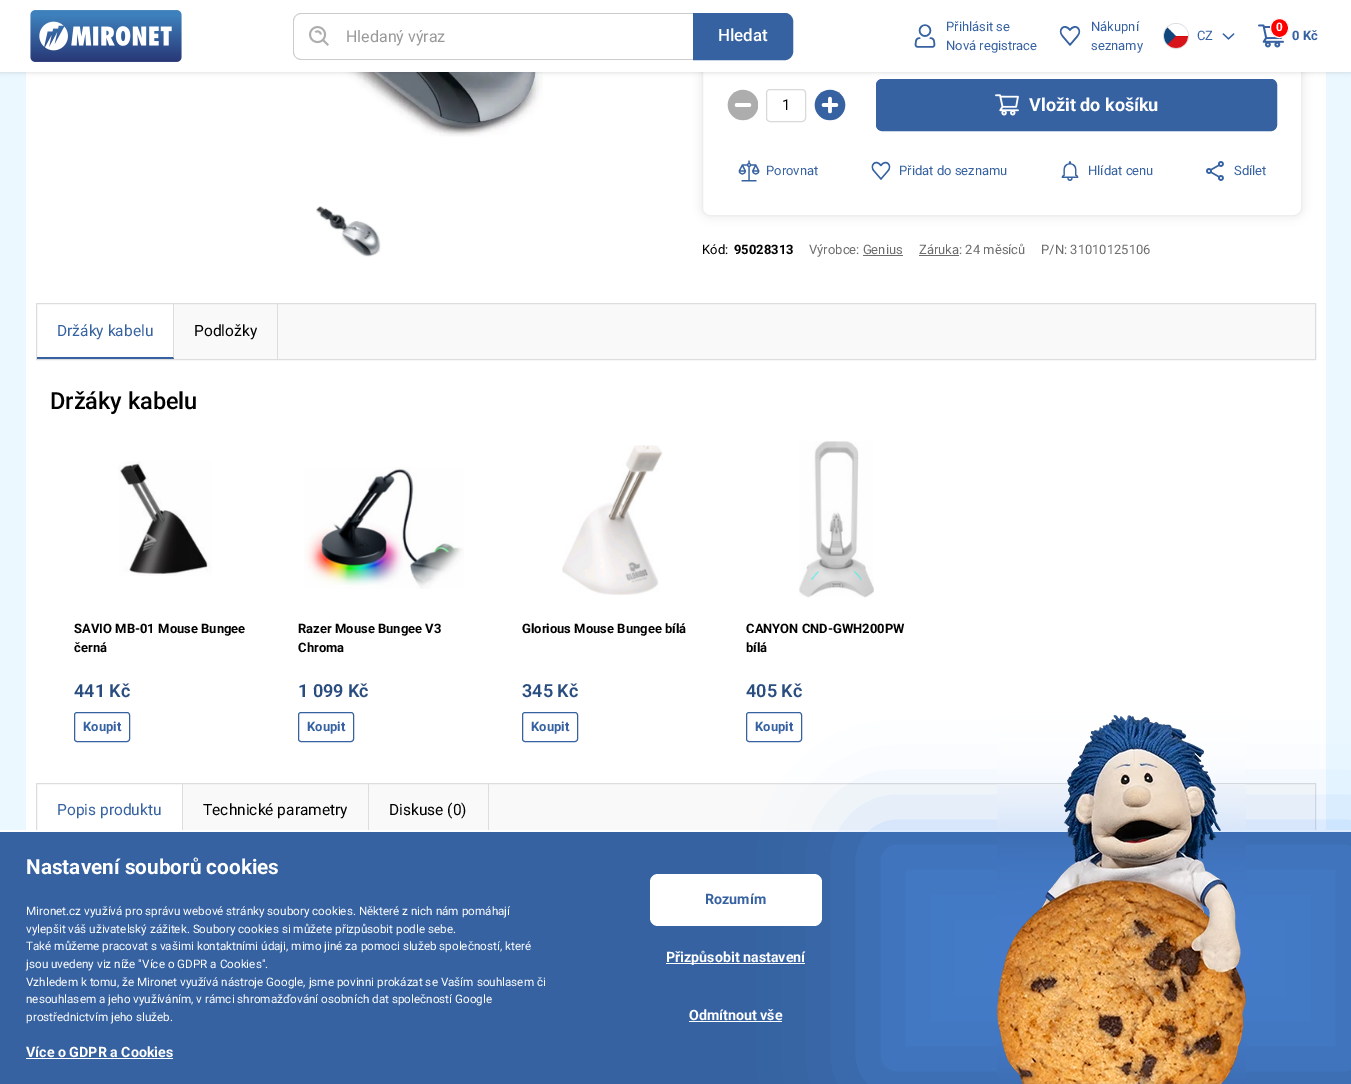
%!PS
<< /PageSize [1351 1084] /PageUsesTransparency true >> setpagedevice
/rgb { 3 { 255 div 3 1 roll } repeat setrgbcolor } def
/font { [ exch dup neg 0 0 3 -1 roll 0 0 ] selectfont } def
/text { moveto show } def
/alpha { dup .setfillconstantalpha .setstrokeconstantalpha } def
/circle { newpath 0 360 arc closepath } def
/roundrect { 5 dict begin { /r /h /w /y /x } { exch def } forall
  x r add y moveto x w add y 2 copy h add r arct x w add y h add x 1 index r arct
  x y h add x y r arct x y 2 copy exch w add exch r arct closepath end } def
/shadow { 12 dict begin { /a /b /q /h /w /y /x } { exch def } forall gsave /was 0 def
  9 -2 -9 { dup b mul 4 div /e exch def 1 sub .425 mul 2.718 exch exp 1 add a .99 .min exch div /now exch def
    1 1 now sub 1 was sub div sub alpha /was now def
    w h .min e 2 mul add 0 gt { x e sub y e sub w e 2 mul add h e 2 mul add
      q e add b .6 mul add w h .min 2 div e add .min 0 .max roundrect fill } if } for grestore end } def
/picture { 5 dict begin { /h /w /y /x /name } { exch def } forall
  gsave x y translate w h scale
  w h 8 [w 0 0 h 0 0] name (r) file false 3 colorimage grestore end } def
0 .pushpdf14devicefilter
0 1084 translate 1 -1 scale
4 setmiterlimit
236 248 255 rgb
0 0 1351 1084 rectfill
255 255 255 rgb
26 72 1300 758 rectfill
(img_08.rgb) 294 72 249 65 picture
gsave
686 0 moveto 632 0 rlineto 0 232 rlineto -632 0 rlineto closepath 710 -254 moveto 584 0 rlineto 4.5 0 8 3.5 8 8 rcurveto 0 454 rlineto 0 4.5 -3.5 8 -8 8 rcurveto -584 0 rlineto -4.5 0 -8 -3.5 -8 -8 rcurveto 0 -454 rlineto 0 -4.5 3.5 -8 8 -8 rcurveto closepath eoclip newpath
0 0 0 rgb
702 -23 600 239 8 5 0.1 shadow
grestore
238 238 238 rgb
702.5 -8.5 599 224 7.5 roundrect stroke
54 98 161 rgb
876.5 79.5 400 51 5.5 roundrect gsave fill grestore
stroke
0 0 0 rgb
0 0 1351 72 0 2.5 0.15 shadow
255 255 255 rgb
0 0 1351 72 rectfill
(img_01.rgb) 30 10 152 52 picture
204 204 204 rgb
301 13 moveto 393 0 rlineto 0 47 rlineto -393 0 rlineto -4 0 -8 -4 -8 -8 rcurveto 0 -31 rlineto 0 -4 4 -8 8 -8 rcurveto closepath 301 14 moveto 393 0 rlineto 0 45 rlineto -393 0 rlineto -4 0 -7 -3 -7 -7 rcurveto 0 -31 rlineto 0 -4 3 -7 7 -7 rcurveto closepath eofill
(img_02.rgb) 309 26 20 20 picture
54 98 161 rgb
693.5 13.5 moveto 91.5 0 rlineto 4 0 7.5 3.5 7.5 7.5 rcurveto 0 31 rlineto 0 4 -3.5 7.5 -7.5 7.5 rcurveto -91.5 0 rlineto closepath gsave fill grestore
stroke
(img_03.rgb) 914 24 22 24 picture
(img_04.rgb) 1059 26 22 20 picture
221 221 221 rgb
1176 36 12.5 circle stroke
(img_05.rgb) 1164 24 24 24 picture
(img_06.rgb) 1222 33 13 7 picture
(img_07.rgb) 1258 24 26 24 picture
255 0 0 rgb
1270.5 18.5 18 19 9 roundrect gsave fill grestore
255 255 255 rgb
stroke
(img_09.rgb) 316 206 65 51 picture
(img_10.rgb) 727 89 31 32 picture
217 217 217 rgb
766.5 89.5 39 32 3.5 roundrect stroke
(img_11.rgb) 814 89 32 32 picture
(img_12.rgb) 995 94 24 22 picture
(img_13.rgb) 738 160 22 22 picture
(img_14.rgb) 871 161 20 19 picture
(img_15.rgb) 1061 161 18 20 picture
(img_16.rgb) 1206 161 18 20 picture
108 108 108 rgb
863 255 40 1 rectfill
919 255 40 1 rectfill
249 249 249 rgb
174 304 1141 55 rectfill
221 221 221 rgb
36.5 303.5 1279 56 rectstroke
174 304 moveto 0 55 rlineto -1 -2 rlineto 0 -53 rlineto closepath fill
54 98 161 rgb
174 359 moveto -137 0 rlineto 0 -2 rlineto 136 0 rlineto closepath fill
221 221 221 rgb
277 304 1 55 rectfill
(img_17.rgb) 118 461 94 115 picture
54 98 161 rgb
74.5 712.5 55 29 2.5 roundrect stroke
(img_18.rgb) 304 467 160 122 picture
298.5 712.5 55 29 2.5 roundrect stroke
(img_19.rgb) 562 445 101 150 picture
522.5 712.5 55 29 2.5 roundrect stroke
(img_20.rgb) 799 441 75 157 picture
746.5 712.5 55 29 2.5 roundrect stroke
249 249 249 rgb
183 784 1132 46 rectfill
221 221 221 rgb
36.5 783.5 1279 53 rectstroke
183 784 moveto 0 52 rlineto -1 -2 rlineto 0 -50 rlineto closepath fill
368 784 1 52 rectfill
488 784 1 52 rectfill
54 98 161 rgb
0 832 1351 252 rectfill
255 255 255 rgb
0 830 1351 2 rectfill
88 157 255 rgb
868 832 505 252 0 50 0.42 shadow
255 255 255 rgb
26 1058 147 1 rectfill
650 874 172 52 8 roundrect fill
666 963 139 1 rectfill
689 1021 93 1 rectfill
(img_21.rgb) 997 715 249 369 picture
/Roboto-Regular 16 font
153 153 153 rgb
(Hledaný výraz) 346 42 text
/Roboto-Medium 17 font
255 255 255 rgb
(Hledat) 718 41 text
/Roboto-Regular 13 font
54 98 161 rgb
(Přihlásit se) 946 31 text
(Nová registrace) 946 50 text
(Nákupní) 1091 31 text
(seznamy) 1091 50 text
(CZ) 1197 40 text
/Roboto-Bold 11.7 font
255 255 255 rgb
(0) 1276 31 text
/Roboto-Bold 13 font
54 98 161 rgb
(0 Kč) 1292 40 text
/Roboto-Regular 15 font
0 0 0 rgb
(1) 782 110 text
/Roboto-Bold 18 font
255 255 255 rgb
(Vložit do košíku) 1029 111 text
/Roboto-Regular 13 font
54 98 161 rgb
(Porovnat) 766 175 text
(Přidat do seznamu) 899 175 text
(Hlídat cenu) 1088 175 text
(Sdílet) 1234 175 text
0 0 0 rgb
(Kód:) 702 254 text
/Roboto-Bold 13 font
(95028313) 734 254 text
/Roboto-Regular 13 font
108 108 108 rgb
(Výrobce: Genius) 809 254 text
(Záruka: 24 měsíců) 919 254 text
(P/N: 31010125106) 1041 254 text
/Roboto-Regular 15.5 font
54 98 161 rgb
(Držáky kabelu) 57 336 text
0 0 0 rgb
(Podložky) 194 336 text
/Roboto-Medium 23.5 font
(Držáky kabelu) 50 409 text
/Roboto-Bold 13 font
(SAVIO MB-01 Mouse Bungee) 74 633 text
(černá) 74 652 text
/Roboto-SemiBold 18 font
42 77 127 rgb
(441 Kč) 74 697 text
/Roboto-Bold 13 font
54 98 161 rgb
(Koupit) 83 731 text
0 0 0 rgb
(Razer Mouse Bungee V3) 298 633 text
(Chroma) 298 652 text
/Roboto-SemiBold 18 font
42 77 127 rgb
(1 099 Kč) 298 697 text
/Roboto-Bold 13 font
54 98 161 rgb
(Koupit) 307 731 text
0 0 0 rgb
(Glorious Mouse Bungee bílá) 522 633 text
/Roboto-SemiBold 18 font
42 77 127 rgb
(345 Kč) 522 697 text
/Roboto-Bold 13 font
54 98 161 rgb
(Koupit) 531 731 text
0 0 0 rgb
(CANYON CND-GWH200PW) 746 633 text
(bílá) 746 652 text
/Roboto-SemiBold 18 font
42 77 127 rgb
(405 Kč) 746 697 text
/Roboto-Bold 13 font
54 98 161 rgb
(Koupit) 755 731 text
/Roboto-Regular 15.5 font
(Popis produktu) 57 815 text
0 0 0 rgb
(Technické parametry) 203 815 text
(Diskuse \(0\)) 389 815 text
/Roboto-Bold 20.75 font
255 255 255 rgb
(Nastavení souborů cookies) 26 874 text
/Roboto-Regular 11.7 font
(Mironet.cz využívá pro správu webové stránky soubory cookies. Některé z nich nám pomáhají) 26 915 text
(vylepšit váš uživatelský zážitek. Soubory cookies si můžete přizpůsobit podle sebe.) 26 933 text
(Také můžeme pracovat s vašimi kontaktními údaji, mimo jiné za pomoci služeb společností, které) 26 950 text
(jsou uvedeny viz níže "Více o GDPR a Cookies".) 26 968 text
(Vzhledem k tomu, že Mironet využívá nástroje Google, jsme povinni prokázat se Vaším souhlasem či) 26 986 text
(nesouhlasem a jeho využíváním, v rámci shromažďování osobních dat společností Google) 26 1003 text
(prostřednictvím jeho služeb.) 26 1021 text
/Roboto-Bold 14.25 font
(Více o GDPR a Cookies) 26 1057 text
54 98 161 rgb
(Rozumím) 705 904 text
255 255 255 rgb
(Přizpůsobit nastavení) 666 962 text
(Odmítnout vše) 689 1020 text
.poppdf14devicefilter showpage
